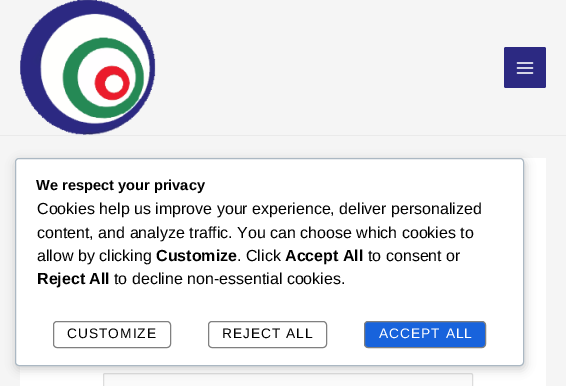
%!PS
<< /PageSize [566 386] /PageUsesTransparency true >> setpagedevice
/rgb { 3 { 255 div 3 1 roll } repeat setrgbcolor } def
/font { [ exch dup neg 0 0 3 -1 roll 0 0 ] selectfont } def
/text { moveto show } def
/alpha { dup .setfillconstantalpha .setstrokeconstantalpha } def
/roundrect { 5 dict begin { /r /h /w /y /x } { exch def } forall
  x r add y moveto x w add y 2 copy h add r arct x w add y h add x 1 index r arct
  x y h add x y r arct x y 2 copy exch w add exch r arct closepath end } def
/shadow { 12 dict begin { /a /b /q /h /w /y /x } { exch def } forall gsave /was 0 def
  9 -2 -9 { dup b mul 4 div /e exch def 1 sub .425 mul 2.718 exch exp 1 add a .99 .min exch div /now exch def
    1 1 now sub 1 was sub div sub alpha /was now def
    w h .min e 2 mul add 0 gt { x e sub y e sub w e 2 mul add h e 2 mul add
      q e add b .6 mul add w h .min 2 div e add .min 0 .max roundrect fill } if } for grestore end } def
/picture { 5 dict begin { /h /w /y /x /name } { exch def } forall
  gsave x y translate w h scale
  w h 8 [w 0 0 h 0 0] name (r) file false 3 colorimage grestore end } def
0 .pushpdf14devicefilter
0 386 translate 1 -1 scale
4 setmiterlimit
245 245 245 rgb
0 0 566 386 rectfill
234 234 234 rgb
0 135 566 1 rectfill
(img_01.rgb) 20 0 136 135 picture
44 41 130 rgb
504 47 42 41 2 roundrect fill
(img_02.rgb) 516 62 18 12 picture
255 255 255 rgb
20 158 526 228 rectfill
250 250 250 rgb
103.5 373.5 369 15 1.5 roundrect gsave fill grestore
221 221 221 rgb
stroke
0 0 0 rgb
16 161 509 208 4 5 0.2 shadow
255 255 255 rgb
15.5 158.5 508 207 3.5 roundrect gsave fill grestore
171 184 195 rgb
stroke
128 128 128 rgb
53.5 321.5 117 26 3.5 roundrect stroke
208.5 321.5 118 26 3.5 roundrect stroke
24 99 220 rgb
364.5 321.5 121 26 3.5 roundrect gsave fill grestore
128 128 128 rgb
stroke
/LiberationSans-Bold 14.6 font
0 0 0 rgb
(We respect your privacy) 36 190 text
/LiberationSans-Regular 16 font
(Cookies help us improve your experience, deliver personalized) 37 214 text
(content, and analyze traffic. You can choose which cookies to) 37 238 text
(allow by clicking) 37 261 text
/LiberationSans-Bold 16 font
(Customize) 156 261 text
/LiberationSans-Regular 16 font
(. Click) 237 261 text
/LiberationSans-Bold 16 font
(Accept All) 285 261 text
/LiberationSans-Regular 16 font
(to consent or) 368 261 text
/LiberationSans-Bold 16 font
(Reject All) 37 284 text
/LiberationSans-Regular 16 font
(to decline non-essential cookies.) 114 284 text
/LiberationSans-Regular 13.75 font
67 338 moveto 1 0 (CUSTOMIZE) ashow
222 338 moveto 1 0 (REJECT ALL) ashow
255 255 255 rgb
379 338 moveto 1 0 (ACCEPT ALL) ashow
.poppdf14devicefilter showpage
